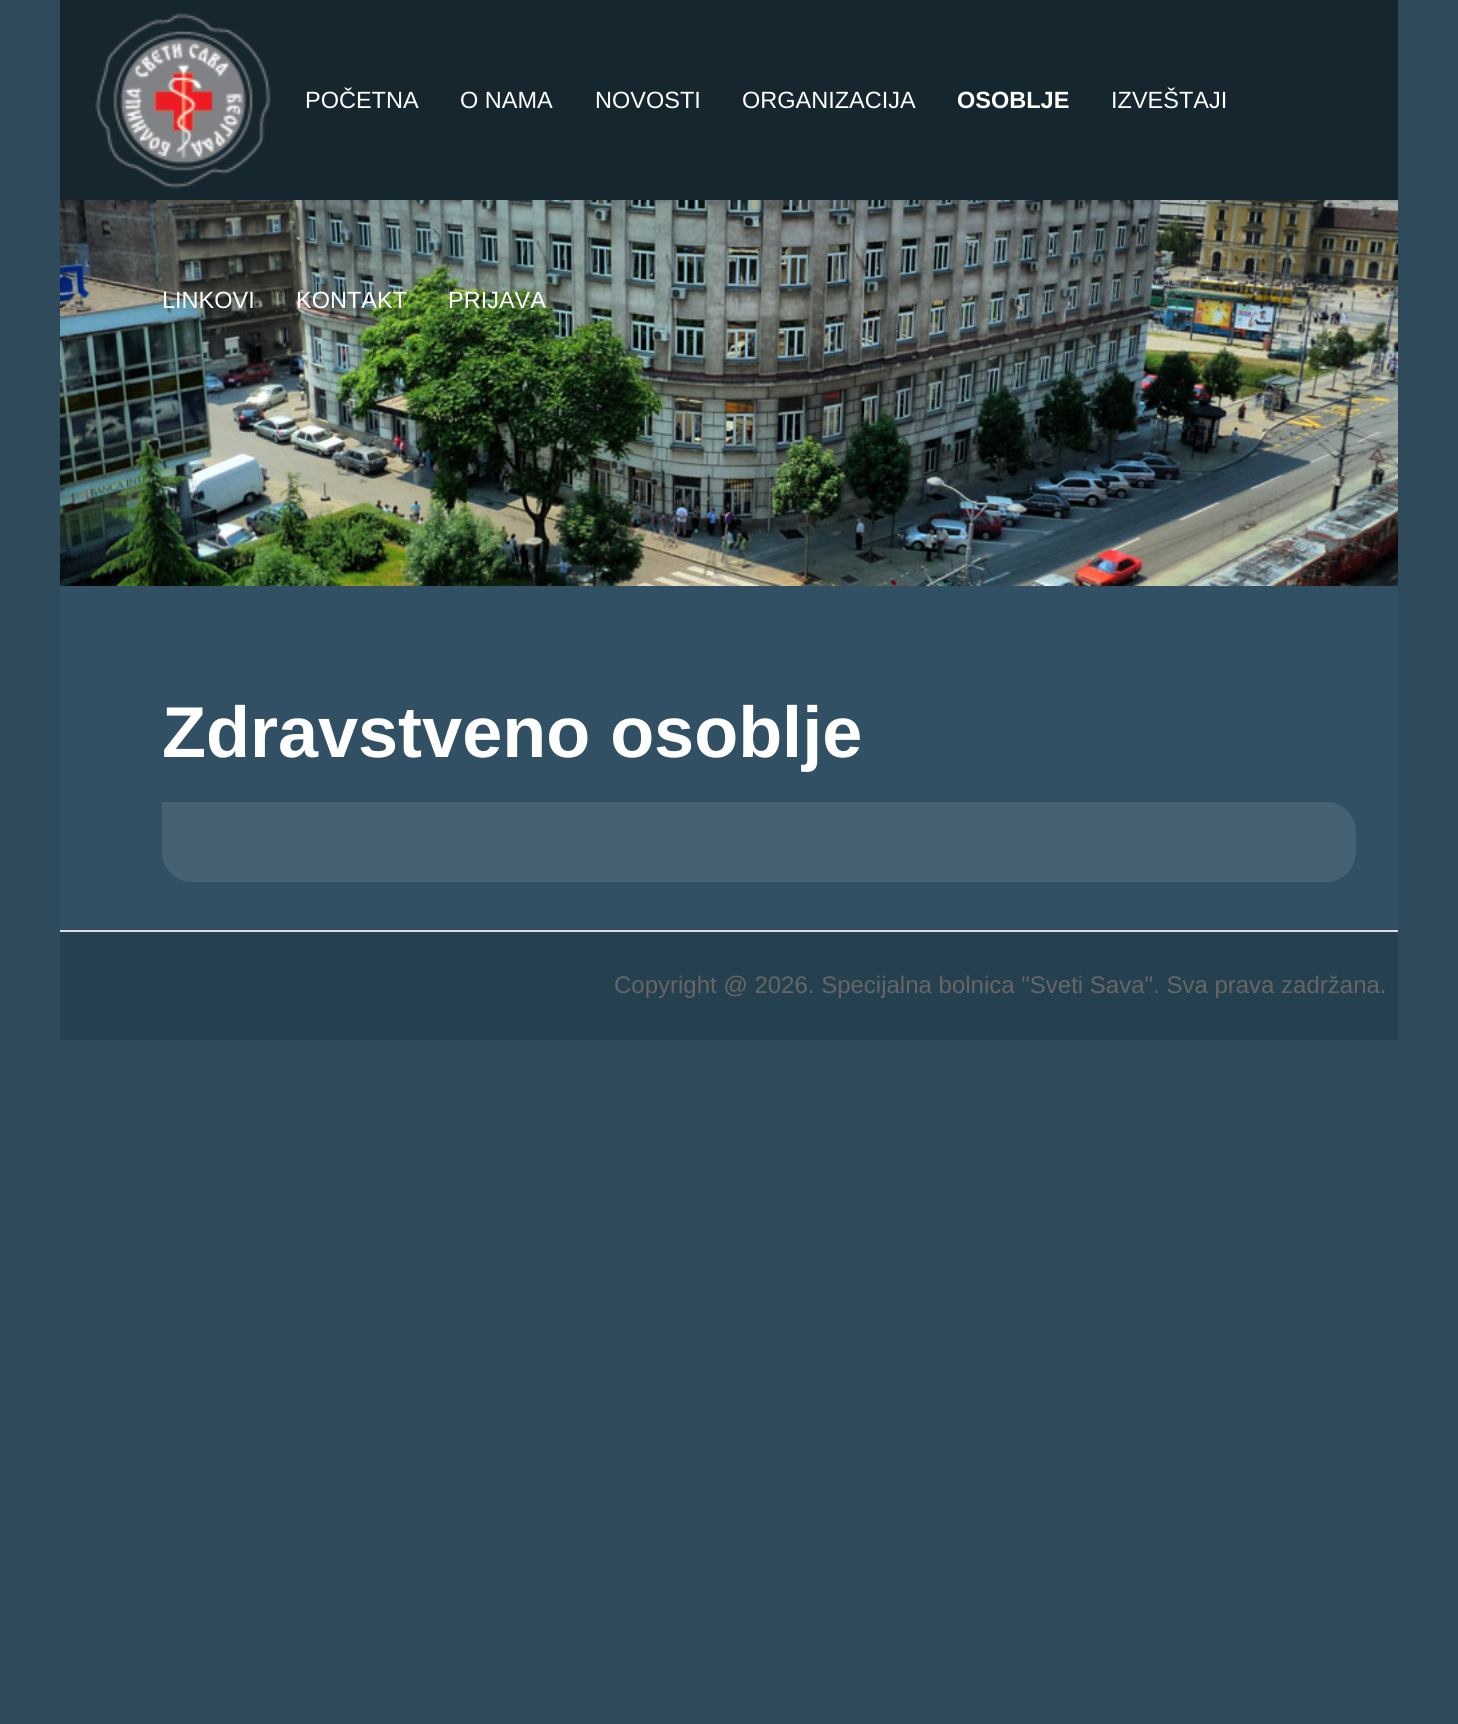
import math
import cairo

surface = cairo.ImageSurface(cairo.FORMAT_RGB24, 1458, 1724)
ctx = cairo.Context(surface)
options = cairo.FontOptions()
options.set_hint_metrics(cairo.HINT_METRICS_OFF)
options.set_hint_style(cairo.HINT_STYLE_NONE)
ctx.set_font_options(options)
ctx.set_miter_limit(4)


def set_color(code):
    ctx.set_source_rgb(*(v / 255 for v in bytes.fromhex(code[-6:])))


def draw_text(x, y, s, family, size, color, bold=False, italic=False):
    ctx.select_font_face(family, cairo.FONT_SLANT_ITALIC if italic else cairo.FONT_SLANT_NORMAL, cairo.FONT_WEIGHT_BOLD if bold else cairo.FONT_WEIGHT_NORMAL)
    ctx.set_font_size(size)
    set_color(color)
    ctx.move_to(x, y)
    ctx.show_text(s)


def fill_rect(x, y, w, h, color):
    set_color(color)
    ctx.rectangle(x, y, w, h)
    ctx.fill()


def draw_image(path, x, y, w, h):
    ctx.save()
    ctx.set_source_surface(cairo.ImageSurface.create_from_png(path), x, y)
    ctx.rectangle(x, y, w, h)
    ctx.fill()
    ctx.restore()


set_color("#2e4a5b")
ctx.paint()
fill_rect(60, 586, 1338, 344, "#325063")
fill_rect(60, 0, 1338, 200, "#15262f")
draw_image("assets/img1.png", 95, 13, 176, 176)
draw_text(305, 108, "POČETNA", "Liberation Sans", 23.5, "#ffffff")
draw_text(460, 108, "O NAMA", "Liberation Sans", 23.5, "#ffffff")
draw_text(595, 108, "NOVOSTI", "Liberation Sans", 23.5, "#ffffff")
draw_text(742, 108, "ORGANIZACIJA", "Liberation Sans", 23.5, "#ffffff")
draw_text(957, 108, "OSOBLJE", "Liberation Sans", 23.5, "#ffffff", bold=True)
draw_text(1111, 108, "IZVEŠTAJI", "Liberation Sans", 23.5, "#ffffff")
draw_image("assets/img2.png", 60, 200, 1338, 386)
draw_text(162, 308, "LINKOVI", "Liberation Sans", 23.5, "#ffffff")
draw_text(296, 308, "KONTAKT", "Liberation Sans", 23.5, "#ffffff")
draw_text(448, 308, "PRIJAVA", "Liberation Sans", 23.5, "#ffffff")
draw_text(162, 757, "Zdravstveno osoblje", "Liberation Sans", 72, "#ffffff", bold=True)
set_color("#466172")
ctx.new_path()
ctx.move_to(162, 802)
ctx.line_to(1326, 802)
ctx.curve_to(1342.5, 802, 1356, 815.5, 1356, 832)
ctx.line_to(1356, 852)
ctx.curve_to(1356, 868.5, 1342.5, 882, 1326, 882)
ctx.line_to(192, 882)
ctx.curve_to(175.5, 882, 162, 868.5, 162, 852)
ctx.close_path()
ctx.fill()
fill_rect(60, 932, 1338, 108, "#25404f")
fill_rect(60, 930, 1338, 2, "#dddddd")
draw_text(614, 993, "Copyright @ 2026. Specijalna bolnica \"Sveti Sava\". Sva prava zadržana.", "Liberation Sans", 24, "#666666")
surface.write_to_png("output.png")
